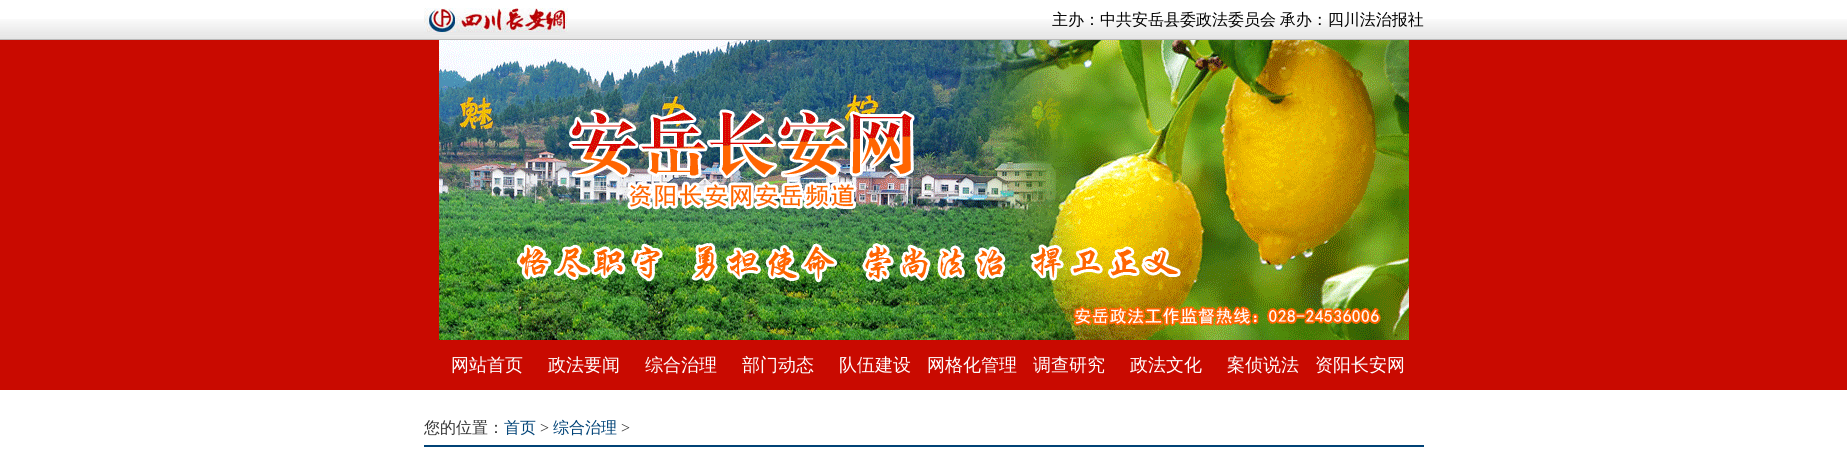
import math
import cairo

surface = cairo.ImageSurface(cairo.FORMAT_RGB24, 1847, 452)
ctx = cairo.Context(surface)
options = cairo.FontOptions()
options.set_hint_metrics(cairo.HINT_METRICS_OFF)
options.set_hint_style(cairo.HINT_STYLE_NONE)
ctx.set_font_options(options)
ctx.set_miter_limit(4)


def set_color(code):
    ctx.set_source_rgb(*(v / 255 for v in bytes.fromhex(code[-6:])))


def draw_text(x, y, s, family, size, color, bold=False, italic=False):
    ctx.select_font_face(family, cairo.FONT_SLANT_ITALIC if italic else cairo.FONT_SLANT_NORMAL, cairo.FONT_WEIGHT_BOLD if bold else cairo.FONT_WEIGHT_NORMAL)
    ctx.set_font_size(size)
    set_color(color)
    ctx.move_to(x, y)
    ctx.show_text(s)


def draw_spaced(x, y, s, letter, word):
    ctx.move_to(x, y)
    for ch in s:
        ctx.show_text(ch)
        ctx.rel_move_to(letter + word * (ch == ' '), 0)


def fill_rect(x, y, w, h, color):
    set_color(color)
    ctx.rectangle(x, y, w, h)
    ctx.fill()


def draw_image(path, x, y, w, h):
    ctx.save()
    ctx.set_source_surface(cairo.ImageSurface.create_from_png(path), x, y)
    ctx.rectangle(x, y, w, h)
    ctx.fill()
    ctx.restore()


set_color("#ffffff")
ctx.paint()
draw_image("assets/img1.png", 0, 19, 1847, 21)
draw_image("assets/img2.png", 424, 8, 144, 28)
ctx.select_font_face("WenQuanYi Zen Hei Medium")
ctx.set_font_size(16)
set_color("#000000")
draw_spaced(1052, 25, "主办：中共安岳县委政法委员会 承办：四川法治报社", 0, -1)
fill_rect(0, 40, 1847, 350, "#c90a00")
draw_image("assets/img3.png", 439, 40, 970, 300)
draw_text(451, 371, "网站首页", "WenQuanYi Zen Hei Medium", 18, "#ffffff")
draw_text(548, 371, "政法要闻", "WenQuanYi Zen Hei Medium", 18, "#ffffff")
draw_text(645, 371, "综合治理", "WenQuanYi Zen Hei Medium", 18, "#ffffff")
draw_text(742, 371, "部门动态", "WenQuanYi Zen Hei Medium", 18, "#ffffff")
draw_text(839, 371, "队伍建设", "WenQuanYi Zen Hei Medium", 18, "#ffffff")
draw_text(927, 371, "网格化管理", "WenQuanYi Zen Hei Medium", 18, "#ffffff")
draw_text(1033, 371, "调查研究", "WenQuanYi Zen Hei Medium", 18, "#ffffff")
draw_text(1130, 371, "政法文化", "WenQuanYi Zen Hei Medium", 18, "#ffffff")
draw_text(1227, 371, "案侦说法", "WenQuanYi Zen Hei Medium", 18, "#ffffff")
draw_text(1315, 371, "资阳长安网", "WenQuanYi Zen Hei Medium", 18, "#ffffff")
draw_text(424, 433, "您的位置：", "WenQuanYi Zen Hei Medium", 16, "#333333")
draw_text(504, 433, "首页", "WenQuanYi Zen Hei Medium", 16, "#004276")
draw_text(540, 433, ">", "Liberation Serif", 16, "#333333")
draw_text(553, 433, "综合治理", "WenQuanYi Zen Hei Medium", 16, "#004276")
draw_text(621, 433, ">", "Liberation Serif", 16, "#333333")
fill_rect(424, 445, 1000, 2, "#004276")
surface.write_to_png("output.png")
